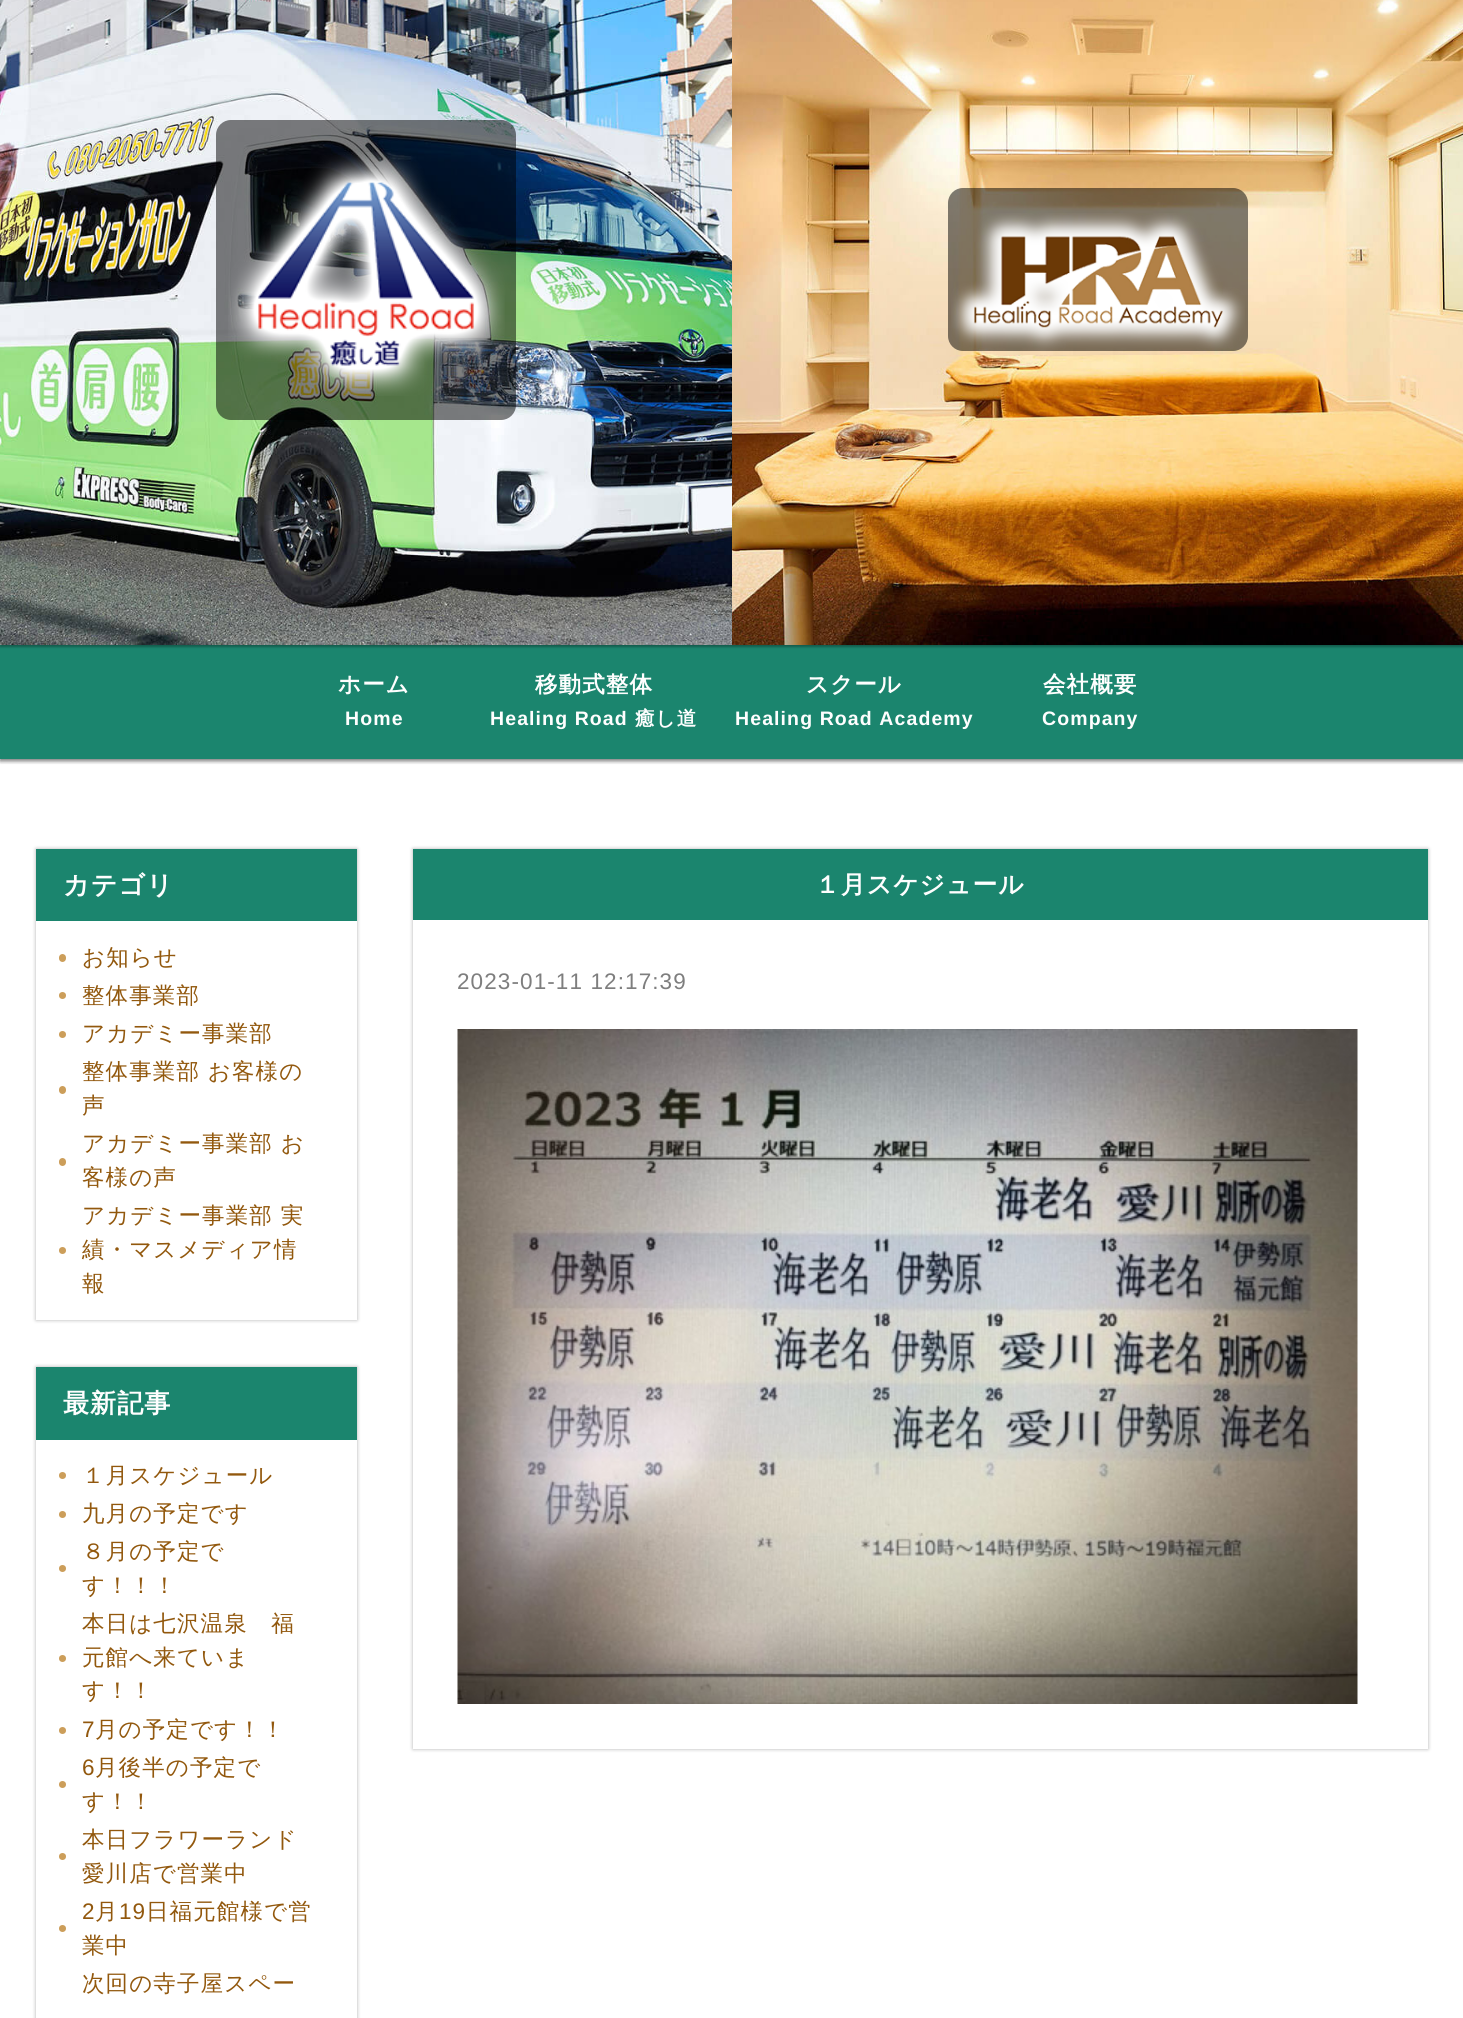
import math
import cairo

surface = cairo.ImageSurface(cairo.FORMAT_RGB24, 1463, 2018)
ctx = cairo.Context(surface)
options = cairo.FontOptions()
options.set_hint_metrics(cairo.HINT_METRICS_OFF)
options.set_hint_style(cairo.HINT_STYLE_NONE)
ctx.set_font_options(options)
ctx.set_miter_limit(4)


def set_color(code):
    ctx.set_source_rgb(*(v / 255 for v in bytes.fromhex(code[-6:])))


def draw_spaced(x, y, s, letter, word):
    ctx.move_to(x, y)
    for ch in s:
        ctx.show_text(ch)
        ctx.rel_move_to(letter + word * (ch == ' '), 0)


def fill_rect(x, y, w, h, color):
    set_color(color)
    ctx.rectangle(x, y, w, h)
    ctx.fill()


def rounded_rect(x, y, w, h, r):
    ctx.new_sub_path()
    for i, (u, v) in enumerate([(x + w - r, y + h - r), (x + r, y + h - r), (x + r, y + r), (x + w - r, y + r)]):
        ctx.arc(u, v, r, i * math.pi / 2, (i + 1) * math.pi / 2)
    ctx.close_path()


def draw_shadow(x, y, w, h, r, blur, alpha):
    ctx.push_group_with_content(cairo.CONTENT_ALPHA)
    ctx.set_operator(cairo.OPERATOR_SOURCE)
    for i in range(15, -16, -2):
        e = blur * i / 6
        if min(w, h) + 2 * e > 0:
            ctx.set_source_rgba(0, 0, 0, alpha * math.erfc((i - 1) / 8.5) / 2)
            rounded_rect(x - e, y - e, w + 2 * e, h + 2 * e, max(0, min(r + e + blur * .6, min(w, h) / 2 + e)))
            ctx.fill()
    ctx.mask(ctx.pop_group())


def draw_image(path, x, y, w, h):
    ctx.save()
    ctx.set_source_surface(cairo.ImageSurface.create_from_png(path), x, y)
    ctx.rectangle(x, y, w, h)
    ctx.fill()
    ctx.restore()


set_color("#ffffff")
ctx.paint()
set_color("#000000")
draw_shadow(0, 647, 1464, 114, 0, 2, 0.3)
fill_rect(0, 645, 1463, 114, "#1b856e")
set_color("#000000")
draw_shadow(0, -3, 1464, 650, 0, 1, 0.3)
ctx.save()
ctx.rectangle(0, 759, 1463, 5)
ctx.clip()
draw_shadow(0, 647, 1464, 114, 0, 2, 0.3)
ctx.restore()
draw_image("assets/img1.png", 0, 0, 732, 645)
ctx.set_source_rgba(0, 0, 0, 0.5)
rounded_rect(216, 120, 300, 300, 15)
ctx.fill()
draw_image("assets/img2.png", 228, 152, 277, 244)
draw_image("assets/img3.png", 732, 0, 731, 645)
rounded_rect(948, 188, 300, 163, 15)
ctx.fill()
draw_image("assets/img4.png", 951, 213, 294, 138)
ctx.select_font_face("WenQuanYi Zen Hei", cairo.FONT_SLANT_NORMAL, cairo.FONT_WEIGHT_BOLD)
ctx.set_font_size(22.5)
set_color("#fefefe")
draw_spaced(338, 692, "ホーム", 1.1, 0)
ctx.select_font_face("Liberation Sans", cairo.FONT_SLANT_NORMAL, cairo.FONT_WEIGHT_BOLD)
ctx.set_font_size(19.5)
draw_spaced(345, 725, "Home", 1.1, 0)
ctx.select_font_face("WenQuanYi Zen Hei", cairo.FONT_SLANT_NORMAL, cairo.FONT_WEIGHT_BOLD)
ctx.set_font_size(22.5)
draw_spaced(535, 692, "移動式整体", 1.1, 0)
ctx.select_font_face("Liberation Sans", cairo.FONT_SLANT_NORMAL, cairo.FONT_WEIGHT_BOLD)
ctx.set_font_size(19.5)
draw_spaced(490, 725, "Healing Road", 1.1, 0)
ctx.select_font_face("WenQuanYi Zen Hei", cairo.FONT_SLANT_NORMAL, cairo.FONT_WEIGHT_BOLD)
draw_spaced(635, 725, "癒し道", 1.1, 0)
ctx.set_font_size(22.5)
draw_spaced(806, 692, "スクール", 1.1, 0)
ctx.select_font_face("Liberation Sans", cairo.FONT_SLANT_NORMAL, cairo.FONT_WEIGHT_BOLD)
ctx.set_font_size(19.5)
draw_spaced(735, 725, "Healing Road Academy", 1.1, 0)
ctx.select_font_face("WenQuanYi Zen Hei", cairo.FONT_SLANT_NORMAL, cairo.FONT_WEIGHT_BOLD)
ctx.set_font_size(22.5)
draw_spaced(1043, 692, "会社概要", 1.1, 0)
ctx.select_font_face("Liberation Sans", cairo.FONT_SLANT_NORMAL, cairo.FONT_WEIGHT_BOLD)
ctx.set_font_size(19.5)
draw_spaced(1042, 725, "Company", 1.1, 0)
ctx.save()
ctx.set_fill_rule(cairo.FILL_RULE_EVEN_ODD)
ctx.new_path()
ctx.move_to(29, 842)
ctx.line_to(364, 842)
ctx.line_to(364, 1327)
ctx.line_to(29, 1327)
ctx.close_path()
ctx.move_to(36, 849)
ctx.line_to(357, 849)
ctx.line_to(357, 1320)
ctx.line_to(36, 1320)
ctx.close_path()
ctx.clip()
set_color("#000000")
draw_shadow(36, 849, 321, 471, 0, 2, 0.3)
ctx.restore()
fill_rect(36, 849, 321, 72, "#1b856e")
ctx.select_font_face("WenQuanYi Zen Hei", cairo.FONT_SLANT_NORMAL, cairo.FONT_WEIGHT_BOLD)
ctx.set_font_size(26)
set_color("#fefefe")
draw_spaced(63, 894, "カテゴリ", 1.1, 0)
set_color("#cc9e5a")
rounded_rect(59, 954, 7, 8, 3.5)
ctx.fill()
ctx.select_font_face("WenQuanYi Zen Hei Medium")
ctx.set_font_size(22.5)
set_color("#92580d")
draw_spaced(82, 965, "お知らせ", 1.1, 0)
set_color("#cc9e5a")
ctx.new_path()
ctx.arc(62.5, 995.5, 3.5, 0, 2 * math.pi)
ctx.fill()
set_color("#92580d")
draw_spaced(82, 1003, "整体事業部", 1.1, 0)
set_color("#cc9e5a")
ctx.new_path()
ctx.arc(62.5, 1034.5, 3.5, 0, 2 * math.pi)
ctx.fill()
set_color("#92580d")
draw_spaced(82, 1041, "アカデミー事業部", 1.1, 0)
draw_spaced(82, 1079, "整体事業部 お客様の", 1.1, 0)
set_color("#cc9e5a")
rounded_rect(59, 1086, 7, 8, 3.5)
ctx.fill()
set_color("#92580d")
draw_spaced(82, 1113, "声", 1.1, 0)
draw_spaced(82, 1151, "アカデミー事業部 お", 1.1, 0)
set_color("#cc9e5a")
rounded_rect(59, 1158, 7, 8, 3.5)
ctx.fill()
set_color("#92580d")
draw_spaced(82, 1185, "客様の声", 1.1, 0)
draw_spaced(82, 1223, "アカデミー事業部 実", 1.1, 0)
set_color("#cc9e5a")
ctx.new_path()
ctx.arc(62.5, 1250.5, 3.5, 0, 2 * math.pi)
ctx.fill()
set_color("#92580d")
draw_spaced(82, 1257, "績・マスメディア情", 1.1, 0)
draw_spaced(82, 1291, "報", 1.1, 0)
ctx.save()
ctx.set_fill_rule(cairo.FILL_RULE_EVEN_ODD)
ctx.new_path()
ctx.move_to(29, 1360)
ctx.line_to(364, 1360)
ctx.line_to(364, 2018)
ctx.line_to(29, 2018)
ctx.close_path()
ctx.move_to(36, 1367)
ctx.line_to(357, 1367)
ctx.line_to(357, 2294)
ctx.line_to(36, 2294)
ctx.close_path()
ctx.clip()
set_color("#000000")
draw_shadow(36, 1367, 321, 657, 0, 2, 0.3)
ctx.restore()
fill_rect(36, 1367, 321, 73, "#1b856e")
ctx.select_font_face("WenQuanYi Zen Hei", cairo.FONT_SLANT_NORMAL, cairo.FONT_WEIGHT_BOLD)
ctx.set_font_size(26)
set_color("#fefefe")
draw_spaced(63, 1412, "最新記事", 1.1, 0)
set_color("#cc9e5a")
ctx.new_path()
ctx.arc(62.5, 1475.5, 3.5, 0, 2 * math.pi)
ctx.fill()
ctx.select_font_face("WenQuanYi Zen Hei Medium")
ctx.set_font_size(22.5)
set_color("#92580d")
draw_spaced(82, 1483, "１月スケジュール", 1.1, 0)
set_color("#cc9e5a")
ctx.new_path()
ctx.arc(62.5, 1514.5, 3.5, 0, 2 * math.pi)
ctx.fill()
set_color("#92580d")
draw_spaced(82, 1521, "九月の予定です", 1.1, 0)
draw_spaced(82, 1559, "８月の予定で", 1.1, 0)
set_color("#cc9e5a")
ctx.new_path()
ctx.arc(62.5, 1568.5, 3.5, 0, 2 * math.pi)
ctx.fill()
set_color("#92580d")
draw_spaced(82, 1593, "す！！！", 1.1, 0)
draw_spaced(82, 1631, "本日は七沢温泉　福", 1.1, 0)
set_color("#cc9e5a")
ctx.new_path()
ctx.arc(62.5, 1658.5, 3.5, 0, 2 * math.pi)
ctx.fill()
set_color("#92580d")
draw_spaced(82, 1665, "元館へ来ていま", 1.1, 0)
draw_spaced(82, 1698, "す！！", 1.1, 0)
set_color("#cc9e5a")
ctx.new_path()
ctx.arc(62.5, 1730.5, 3.5, 0, 2 * math.pi)
ctx.fill()
ctx.select_font_face("Liberation Sans")
set_color("#92580d")
draw_spaced(82, 1737, "7", 1.1, 0)
ctx.select_font_face("WenQuanYi Zen Hei Medium")
draw_spaced(95, 1737, "月の予定です！！", 1.1, 0)
ctx.select_font_face("Liberation Sans")
draw_spaced(82, 1775, "6", 1.1, 0)
ctx.select_font_face("WenQuanYi Zen Hei Medium")
draw_spaced(95, 1775, "月後半の予定で", 1.1, 0)
set_color("#cc9e5a")
ctx.new_path()
ctx.arc(62.5, 1784.5, 3.5, 0, 2 * math.pi)
ctx.fill()
set_color("#92580d")
draw_spaced(82, 1809, "す！！", 1.1, 0)
draw_spaced(82, 1847, "本日フラワーランド", 1.1, 0)
set_color("#cc9e5a")
ctx.new_path()
ctx.arc(62.5, 1856.5, 3.5, 0, 2 * math.pi)
ctx.fill()
set_color("#92580d")
draw_spaced(82, 1881, "愛川店で営業中", 1.1, 0)
ctx.select_font_face("Liberation Sans")
draw_spaced(82, 1919, "2", 1.1, 0)
ctx.select_font_face("WenQuanYi Zen Hei Medium")
draw_spaced(95, 1919, "月", 1.1, 0)
ctx.select_font_face("Liberation Sans")
draw_spaced(119, 1919, "19", 1.1, 0)
ctx.select_font_face("WenQuanYi Zen Hei Medium")
draw_spaced(146, 1919, "日福元館様で営", 1.1, 0)
set_color("#cc9e5a")
ctx.new_path()
ctx.arc(62.5, 1928.5, 3.5, 0, 2 * math.pi)
ctx.fill()
set_color("#92580d")
draw_spaced(82, 1953, "業中", 1.1, 0)
draw_spaced(82, 1991, "次回の寺子屋スペー", 1.1, 0)
ctx.save()
ctx.set_fill_rule(cairo.FILL_RULE_EVEN_ODD)
ctx.new_path()
ctx.move_to(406, 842)
ctx.line_to(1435, 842)
ctx.line_to(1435, 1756)
ctx.line_to(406, 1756)
ctx.close_path()
ctx.move_to(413, 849)
ctx.line_to(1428, 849)
ctx.line_to(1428, 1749)
ctx.line_to(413, 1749)
ctx.close_path()
ctx.clip()
set_color("#000000")
draw_shadow(413, 849, 1015, 900, 0, 2, 0.3)
ctx.restore()
fill_rect(413, 849, 1015, 71, "#1b856e")
ctx.select_font_face("WenQuanYi Zen Hei", cairo.FONT_SLANT_NORMAL, cairo.FONT_WEIGHT_BOLD)
ctx.set_font_size(24.75)
set_color("#fefefe")
draw_spaced(815, 893, "１月スケジュール", 1.1, 0)
ctx.select_font_face("Liberation Sans")
ctx.set_font_size(22.5)
set_color("#7e7e7e")
draw_spaced(457, 989, "2023-01-11 12:17:39", 1.1, 0)
draw_image("assets/img5.png", 457, 1029, 901, 675)
surface.write_to_png("output.png")
